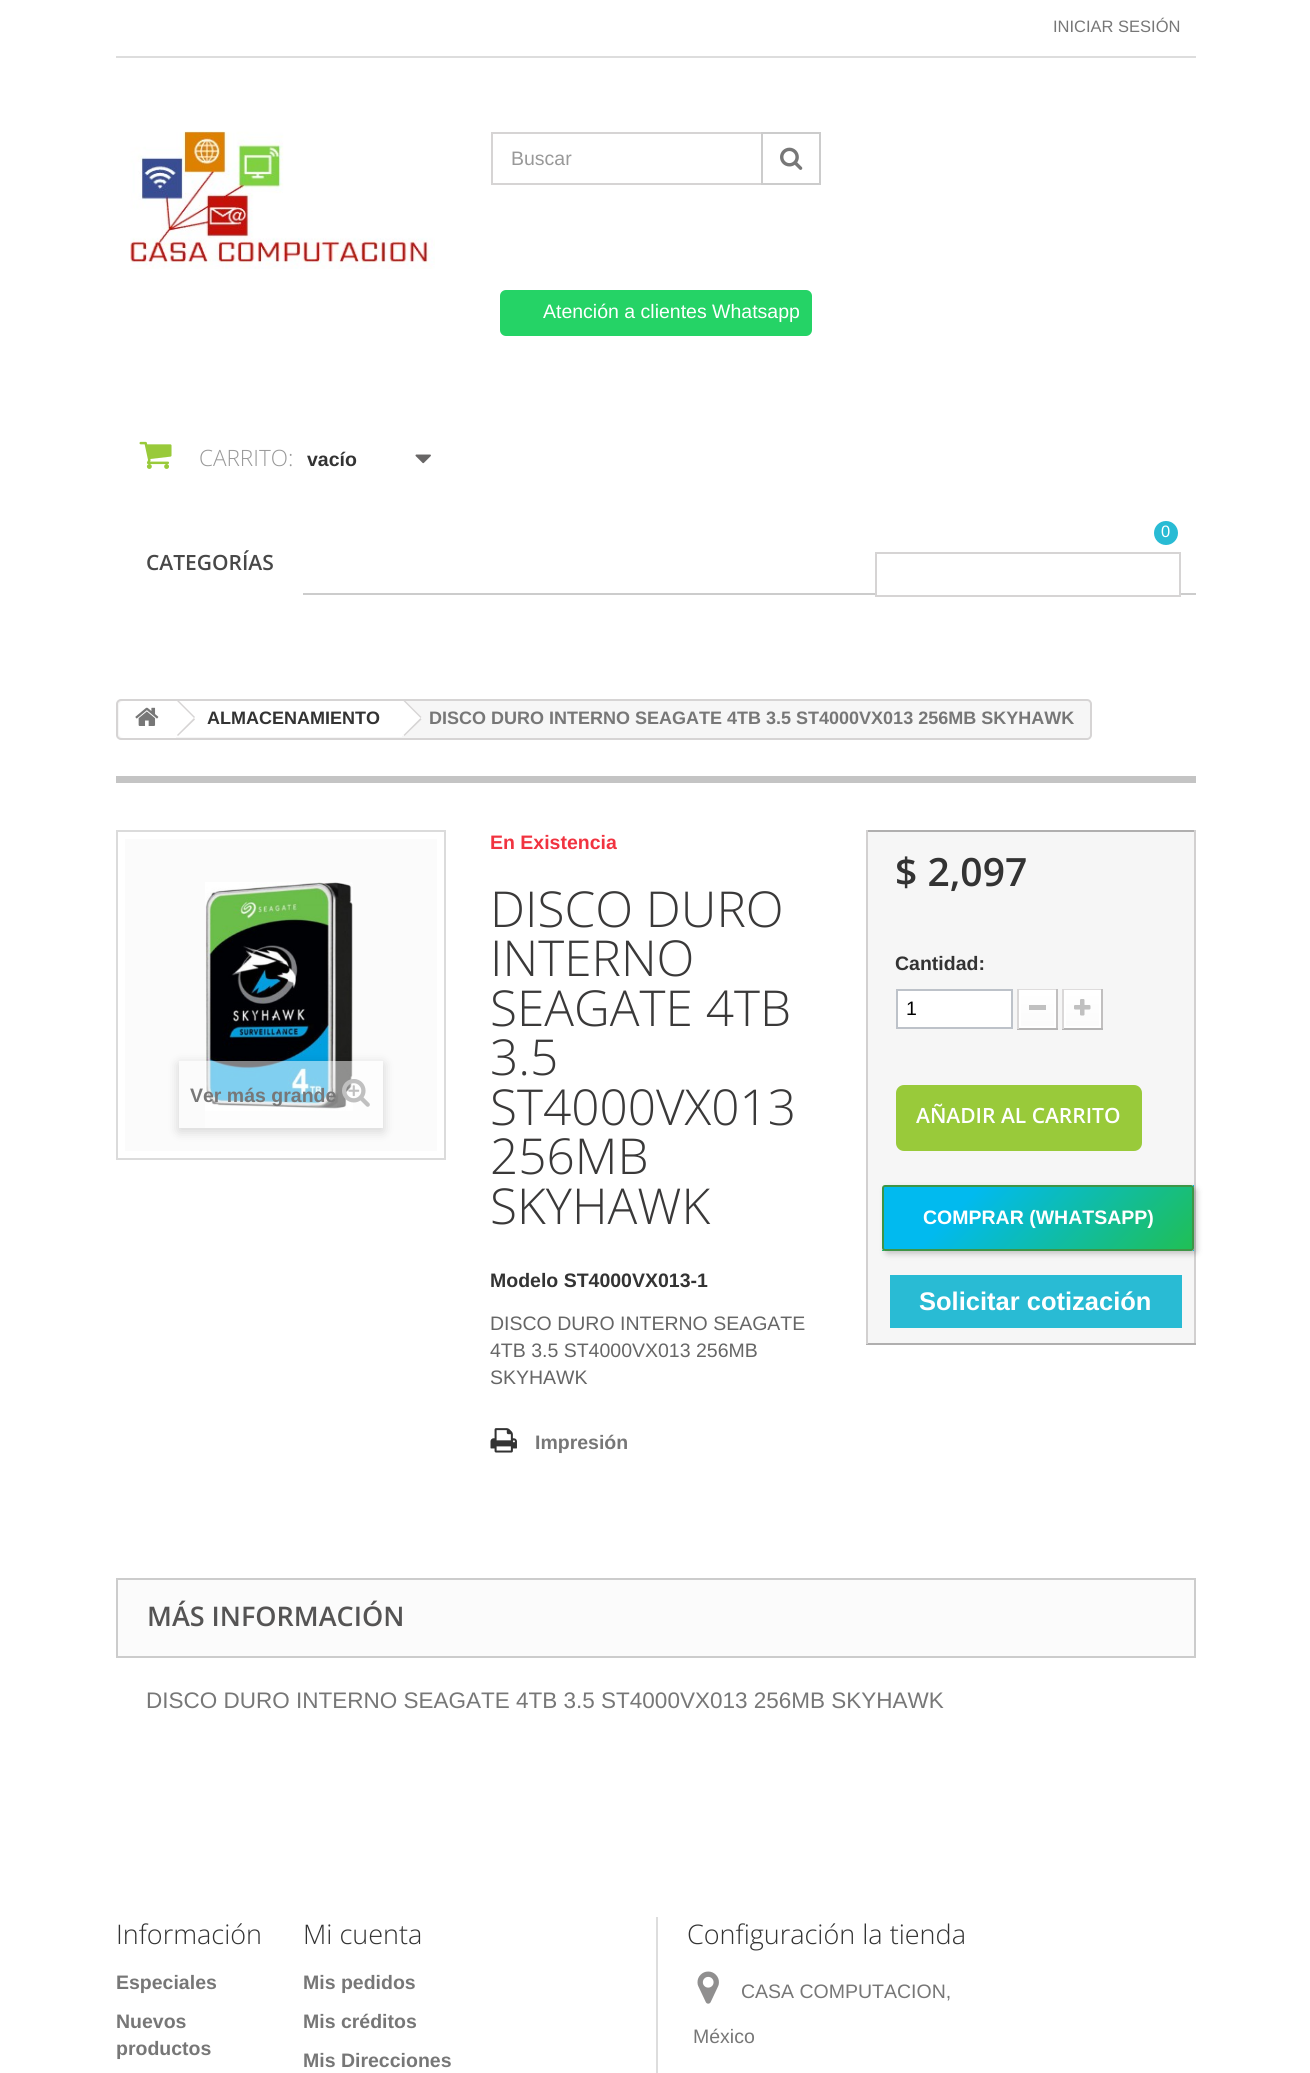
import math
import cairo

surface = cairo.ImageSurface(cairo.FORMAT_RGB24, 1310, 2073)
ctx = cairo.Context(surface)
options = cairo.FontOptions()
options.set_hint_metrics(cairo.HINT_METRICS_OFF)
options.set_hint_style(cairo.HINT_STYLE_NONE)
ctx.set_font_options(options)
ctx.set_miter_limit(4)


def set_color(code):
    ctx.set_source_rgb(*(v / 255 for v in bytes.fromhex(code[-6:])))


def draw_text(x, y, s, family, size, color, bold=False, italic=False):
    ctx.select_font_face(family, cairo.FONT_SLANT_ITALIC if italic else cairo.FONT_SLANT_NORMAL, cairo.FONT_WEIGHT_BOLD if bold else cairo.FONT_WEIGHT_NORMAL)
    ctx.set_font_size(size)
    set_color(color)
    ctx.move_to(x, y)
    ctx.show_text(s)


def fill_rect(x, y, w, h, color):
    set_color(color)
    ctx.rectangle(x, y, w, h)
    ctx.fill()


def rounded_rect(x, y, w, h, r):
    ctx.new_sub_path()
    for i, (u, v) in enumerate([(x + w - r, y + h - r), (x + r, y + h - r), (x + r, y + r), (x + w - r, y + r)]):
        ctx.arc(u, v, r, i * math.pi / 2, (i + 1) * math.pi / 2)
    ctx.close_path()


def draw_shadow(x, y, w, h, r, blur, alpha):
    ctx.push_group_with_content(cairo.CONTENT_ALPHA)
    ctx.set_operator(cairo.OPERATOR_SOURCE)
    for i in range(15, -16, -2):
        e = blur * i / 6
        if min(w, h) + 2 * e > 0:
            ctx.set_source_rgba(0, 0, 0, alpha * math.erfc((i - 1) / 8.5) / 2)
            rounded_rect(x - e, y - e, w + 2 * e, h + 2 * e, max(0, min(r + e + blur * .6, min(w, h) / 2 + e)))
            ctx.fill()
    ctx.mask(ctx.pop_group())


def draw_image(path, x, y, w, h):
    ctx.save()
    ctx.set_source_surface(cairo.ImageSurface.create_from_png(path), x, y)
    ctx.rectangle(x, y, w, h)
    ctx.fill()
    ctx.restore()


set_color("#ffffff")
ctx.paint()
fill_rect(116, 56, 1080, 2, "#dddddd")
draw_text(1053, 32, "INICIAR SESIÓN", "Liberation Sans", 16.5, "#777777")
draw_image("assets/img1.png", 130, 131, 305, 138)
ctx.rectangle(492, 133, 328, 51)
set_color("#d6d4d4")
ctx.stroke()
draw_text(511, 165, "Buscar", "Liberation Sans", 19.5, "#999999")
ctx.rectangle(762, 133, 58, 51)
set_color("#cccccc")
ctx.stroke()
draw_image("assets/img2.png", 780, 147, 23, 23)
set_color("#25d366")
rounded_rect(500, 290, 312, 46, 6)
ctx.fill()
draw_text(543, 318, "Atención a clientes Whatsapp", "Liberation Sans", 19.5, "#ffffff")
draw_image("assets/img3.png", 139, 441, 33, 28)
draw_text(199, 466, "CARRITO:", "Open Sans Light", 22.5, "#999999")
draw_text(307, 466, "vacío", "Liberation Sans", 19.5, "#333333", bold=True)
draw_image("assets/img4.png", 415, 454, 16, 10)
set_color("#29bbd4")
ctx.arc(1166, 533, 12, 0, 2 * math.pi)
ctx.fill()
draw_text(1161, 537, "0", "Liberation Sans", 16.5, "#ffffff")
fill_rect(303, 593, 893, 2, "#cccccc")
draw_text(146, 570, "CATEGORÍAS", "Open Sans SemiBold", 21, "#484848")
fill_rect(877, 593, 302, 2, "#ffffff")
ctx.rectangle(876, 553, 304, 43)
set_color("#d6d4d4")
ctx.stroke()
set_color("#f6f6f6")
rounded_rect(117, 700, 974, 39, 4)
ctx.fill_preserve()
set_color("#d6d4d4")
ctx.stroke()
set_color("#ffffff")
ctx.new_path()
ctx.move_to(124, 701)
ctx.line_to(176, 701)
ctx.line_to(176, 738)
ctx.line_to(124, 738)
ctx.curve_to(121, 738, 119, 736, 119, 733)
ctx.line_to(119, 706)
ctx.curve_to(119, 703, 121, 701, 124, 701)
ctx.close_path()
ctx.fill()
draw_image("assets/img5.png", 135, 707, 24, 19)
fill_rect(176, 701, 226, 36, "#ffffff")
set_color("#d6d4d4")
ctx.new_path()
ctx.move_to(179, 701)
ctx.line_to(195, 717)
ctx.line_to(194, 718)
ctx.line_to(177, 701)
ctx.close_path()
ctx.move_to(194, 718)
ctx.line_to(195, 719.5)
ctx.line_to(178, 736)
ctx.line_to(177, 735)
ctx.close_path()
ctx.fill()
draw_text(207, 724, "ALMACENAMIENTO", "Liberation Sans", 18, "#333333", bold=True)
set_color("#ffffff")
ctx.new_path()
ctx.move_to(405.5, 701)
ctx.line_to(401.5, 701)
ctx.line_to(386.5, 716)
ctx.curve_to(385.5, 717, 385.5, 719, 386.5, 720.5)
ctx.line_to(401.5, 735)
ctx.curve_to(402.5, 736.5, 404.5, 736.5, 405.5, 735)
ctx.line_to(420.5, 720.5)
ctx.curve_to(421.5, 719, 421.5, 717, 420.5, 716)
ctx.close_path()
ctx.fill()
set_color("#d6d4d4")
ctx.new_path()
ctx.move_to(405.5, 701)
ctx.line_to(421.5, 717)
ctx.line_to(420.5, 718)
ctx.line_to(403.5, 701)
ctx.close_path()
ctx.move_to(420.5, 718)
ctx.line_to(421.5, 719.5)
ctx.line_to(404.5, 736)
ctx.line_to(403.5, 735)
ctx.close_path()
ctx.fill()
draw_text(429, 724, "DISCO DURO INTERNO SEAGATE 4TB 3.5 ST4000VX013 256MB SKYHAWK", "Liberation Sans", 18, "#777777", bold=True)
fill_rect(116, 776, 1080, 7, "#c4c4c4")
ctx.rectangle(117, 831, 328, 328)
set_color("#dbdbdb")
ctx.stroke()
fill_rect(125, 839, 312, 312, "#fbfbfb")
draw_image("assets/img6.png", 205, 882, 148, 229)
ctx.save()
ctx.set_fill_rule(cairo.FILL_RULE_EVEN_ODD)
ctx.new_path()
ctx.move_to(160, 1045)
ctx.line_to(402, 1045)
ctx.line_to(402, 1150)
ctx.line_to(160, 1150)
ctx.close_path()
ctx.move_to(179, 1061)
ctx.line_to(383, 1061)
ctx.line_to(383, 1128)
ctx.line_to(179, 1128)
ctx.close_path()
ctx.clip()
set_color("#000000")
draw_shadow(179, 1064, 204, 67, 0, 6, 0.16)
ctx.restore()
ctx.set_source_rgba(1, 1, 1, 0.5)
ctx.rectangle(205, 1061, 178, 67)
ctx.fill()
draw_text(190, 1102, "Ver más grande", "Liberation Sans", 19.5, "#777777", bold=True)
draw_image("assets/img7.png", 342, 1079, 28, 28)
draw_text(490, 849, "En Existencia", "Liberation Sans", 19.5, "#f13340", bold=True)
draw_text(490, 927, "DISCO DURO", "Open Sans Light", 49.5, "#3a3939")
draw_text(490, 976, "INTERNO", "Open Sans Light", 49.5, "#3a3939")
draw_text(490, 1026, "SEAGATE 4TB", "Open Sans Light", 49.5, "#3a3939")
draw_text(490, 1075, "3.5", "Open Sans Light", 49.5, "#3a3939")
draw_text(490, 1125, "ST4000VX013", "Open Sans Light", 49.5, "#3a3939")
draw_text(490, 1174, "256MB", "Open Sans Light", 49.5, "#3a3939")
draw_text(490, 1224, "SKYHAWK", "Open Sans Light", 49.5, "#3a3939")
draw_text(490, 1287, "Modelo ST4000VX013-1", "Liberation Sans", 19.5, "#333333", bold=True)
draw_text(490, 1330, "DISCO DURO INTERNO SEAGATE", "Liberation Sans", 19.5, "#666666")
draw_text(490, 1357, "4TB 3.5 ST4000VX013 256MB", "Liberation Sans", 19.5, "#666666")
draw_text(490, 1384, "SKYHAWK", "Liberation Sans", 19.5, "#666666")
draw_image("assets/img8.png", 490, 1428, 27, 25)
draw_text(535, 1449, "Impresión", "Liberation Sans", 19.5, "#777777", bold=True)
fill_rect(868, 832, 326, 511, "#f6f6f6")
fill_rect(866, 830, 330, 2, "#b0afaf")
fill_rect(1194, 830, 2, 514, "#d2d0d0")
fill_rect(866, 1343, 330, 2, "#b0afaf")
fill_rect(866, 830, 2, 514, "#d2d0d0")
draw_text(895, 886, "$ 2,097", "Open Sans SemiBold", 39, "#333333")
draw_text(895, 970, "Cantidad:", "Liberation Sans", 19.5, "#333333", bold=True)
set_color("#ffffff")
ctx.rectangle(897, 990, 115, 38)
ctx.fill_preserve()
set_color("#bdc2c9")
ctx.stroke()
draw_text(906, 1015, "1", "Liberation Sans", 19.5, "#000000")
fill_rect(1017, 989, 41, 1, "#dedcdc")
fill_rect(1056, 989, 2, 40, "#c1bfbf")
fill_rect(1017, 1028, 41, 2, "#b5b4b4")
fill_rect(1017, 989, 2, 40, "#dad8d8")
gradient = cairo.LinearGradient(1037, 992, 1037, 1026)
gradient.add_color_stop_rgba(0, 1, 1, 1, 1)
gradient.add_color_stop_rgba(1, 0.984, 0.984, 0.984, 1)
ctx.set_source(gradient)
ctx.rectangle(1021, 992, 33, 34)
ctx.fill()
ctx.rectangle(1020, 991, 35, 36)
set_color("#ffffff")
ctx.stroke()
fill_rect(1029, 1005, 17, 5, "#c0c0c0")
fill_rect(1062, 989, 41, 1, "#dedcdc")
fill_rect(1101, 989, 2, 40, "#c1bfbf")
fill_rect(1062, 1028, 41, 2, "#b5b4b4")
fill_rect(1062, 989, 2, 40, "#dad8d8")
gradient = cairo.LinearGradient(1082, 992, 1082, 1026)
gradient.add_color_stop_rgba(0, 1, 1, 1, 1)
gradient.add_color_stop_rgba(1, 0.984, 0.984, 0.984, 1)
ctx.set_source(gradient)
ctx.rectangle(1066, 992, 33, 34)
ctx.fill()
ctx.rectangle(1065, 991, 35, 36)
set_color("#ffffff")
ctx.stroke()
draw_image("assets/img9.png", 1074, 999, 17, 17)
set_color("#99ca3a")
rounded_rect(897, 1086, 244, 64, 7)
ctx.fill_preserve()
ctx.stroke()
draw_text(916, 1123, "AÑADIR AL CARRITO", "Open Sans SemiBold", 21, "#ffffff")
set_color("#000000")
draw_shadow(885, 1188, 312, 66, 3, 3, 0.2)
gradient = cairo.LinearGradient(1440, 1248, 1254, 1062)
gradient.add_color_stop_rgba(0, 0.125, 0.749, 0.333, 1)
gradient.add_color_stop_rgba(0.74, 0.004, 0.729, 0.937, 1)
ctx.set_source(gradient)
ctx.rectangle(1193, 1185, 1, 2)
ctx.fill()
gradient = cairo.LinearGradient(1131, 1311, 945, 1125)
gradient.add_color_stop_rgba(0, 0.125, 0.749, 0.333, 1)
gradient.add_color_stop_rgba(0.74, 0.004, 0.729, 0.937, 1)
ctx.set_source(gradient)
ctx.rectangle(884, 1187, 308, 62)
ctx.fill()
gradient = cairo.LinearGradient(822, 1374, 636, 1188)
gradient.add_color_stop_rgba(0, 0.125, 0.749, 0.333, 1)
gradient.add_color_stop_rgba(0.74, 0.004, 0.729, 0.937, 1)
ctx.set_source(gradient)
ctx.rectangle(882, 1250, 2, 1)
ctx.fill()
gradient = cairo.LinearGradient(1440, 1374, 1254, 1188)
gradient.add_color_stop_rgba(0, 0.125, 0.749, 0.333, 1)
gradient.add_color_stop_rgba(0.74, 0.004, 0.729, 0.937, 1)
ctx.set_source(gradient)
ctx.rectangle(1193, 1250, 1, 1)
ctx.fill()
rounded_rect(883, 1186, 310, 64, 2)
set_color("#3e9546")
ctx.stroke()
draw_text(923, 1224, "COMPRAR (WHATSAPP)", "Liberation Sans", 19.5, "#ffffff", bold=True)
fill_rect(890, 1275, 292, 53, "#29bbd4")
draw_text(919, 1310, "Solicitar cotización", "Liberation Sans", 25.5, "#ffffff", bold=True)
set_color("#fbfbfb")
ctx.rectangle(117, 1579, 1078, 78)
ctx.fill_preserve()
set_color("#cccccc")
ctx.stroke()
draw_text(147, 1626, "MÁS INFORMACIÓN", "Open Sans SemiBold", 27, "#555454")
draw_text(146, 1708, "DISCO DURO INTERNO SEAGATE 4TB 3.5 ST4000VX013 256MB SKYHAWK", "Liberation Sans", 22.5, "#777777")
draw_text(116, 1944, "Información", "Open Sans Light", 27, "#333333")
draw_text(116, 1989, "Especiales", "Liberation Sans", 19.5, "#777777", bold=True)
draw_text(116, 2028, "Nuevos", "Liberation Sans", 19.5, "#777777", bold=True)
draw_text(116, 2055, "productos", "Liberation Sans", 19.5, "#777777", bold=True)
draw_text(303, 1944, "Mi cuenta", "Open Sans Light", 27, "#333333")
draw_text(303, 1989, "Mis pedidos", "Liberation Sans", 19.5, "#777777", bold=True)
draw_text(303, 2028, "Mis créditos", "Liberation Sans", 19.5, "#777777", bold=True)
draw_text(303, 2067, "Mis Direcciones", "Liberation Sans", 19.5, "#777777", bold=True)
fill_rect(656, 1917, 2, 156, "#dddddd")
draw_text(687, 1944, "Configuración la tienda", "Open Sans Light", 27, "#333333")
draw_image("assets/img10.png", 697, 1971, 22, 33)
draw_text(741, 1998, "CASA COMPUTACION,", "Liberation Sans", 19.5, "#777777")
draw_text(693, 2043, "México", "Liberation Sans", 19.5, "#777777")
surface.write_to_png("output.png")
